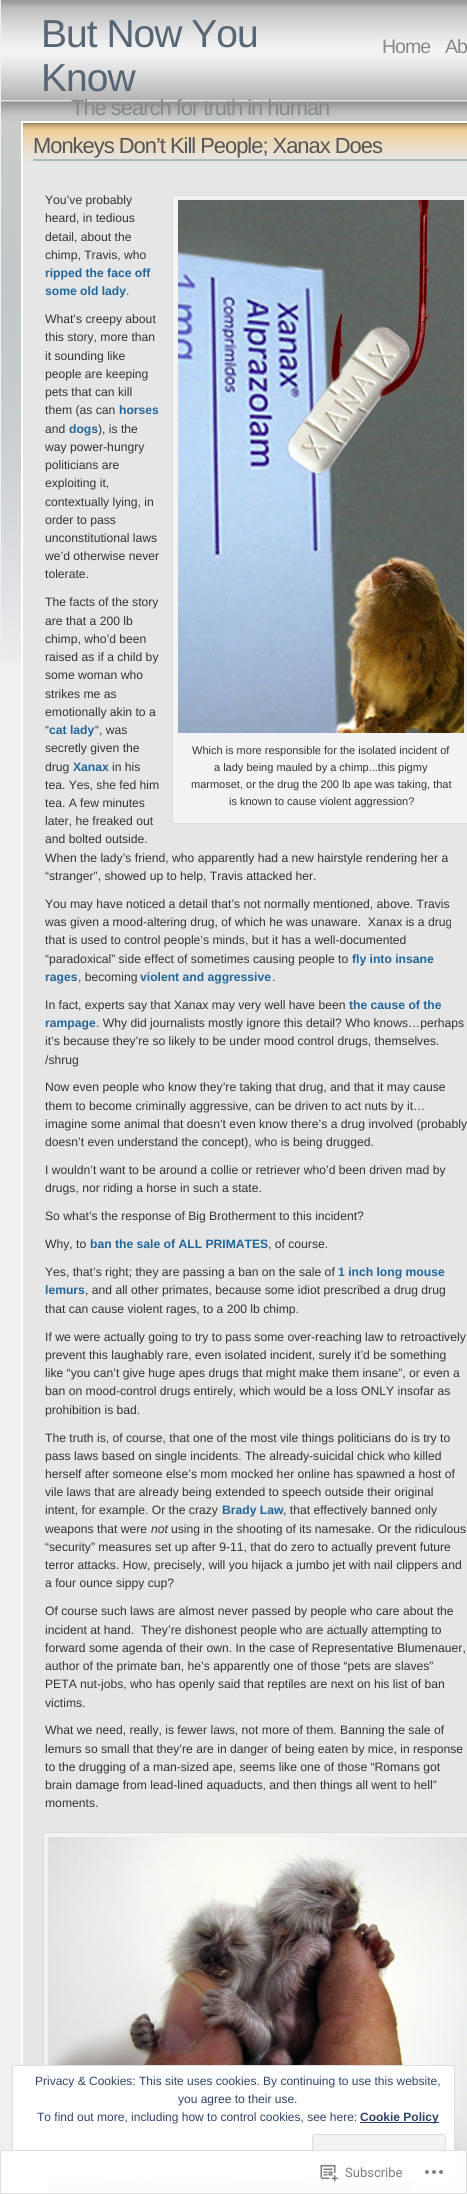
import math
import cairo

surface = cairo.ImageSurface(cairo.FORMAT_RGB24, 467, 2194)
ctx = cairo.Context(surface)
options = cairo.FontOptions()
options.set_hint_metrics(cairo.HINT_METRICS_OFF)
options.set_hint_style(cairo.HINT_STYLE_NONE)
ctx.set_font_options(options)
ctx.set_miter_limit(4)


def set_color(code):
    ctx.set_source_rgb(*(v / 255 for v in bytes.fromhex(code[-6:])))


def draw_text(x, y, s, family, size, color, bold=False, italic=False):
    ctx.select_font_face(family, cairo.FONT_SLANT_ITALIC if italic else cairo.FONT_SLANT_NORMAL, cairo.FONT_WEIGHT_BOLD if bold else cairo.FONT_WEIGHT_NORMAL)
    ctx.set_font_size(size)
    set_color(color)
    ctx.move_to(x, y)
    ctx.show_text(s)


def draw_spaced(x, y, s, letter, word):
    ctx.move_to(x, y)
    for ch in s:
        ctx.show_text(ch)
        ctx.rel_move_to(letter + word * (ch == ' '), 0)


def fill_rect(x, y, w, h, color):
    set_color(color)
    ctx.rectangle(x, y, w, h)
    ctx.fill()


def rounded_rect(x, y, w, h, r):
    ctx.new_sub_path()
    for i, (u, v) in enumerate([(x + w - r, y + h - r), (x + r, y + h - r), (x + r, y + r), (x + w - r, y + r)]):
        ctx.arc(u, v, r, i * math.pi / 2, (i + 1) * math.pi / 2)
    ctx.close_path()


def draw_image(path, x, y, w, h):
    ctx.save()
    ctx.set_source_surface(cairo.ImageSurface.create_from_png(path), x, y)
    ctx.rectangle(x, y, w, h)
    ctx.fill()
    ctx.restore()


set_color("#f0f0f0")
ctx.paint()
draw_image("assets/img1.png", 1, 0, 466, 661)
fill_rect(0, 0, 1, 2194, "#eeeeff")
ctx.select_font_face("Liberation Sans")
ctx.set_font_size(39)
set_color("#556677")
draw_spaced(41, 47, "But Now You", -1, 0)
draw_spaced(41, 91, "Know", -1, 0)
ctx.set_font_size(21.9)
set_color("#888888")
draw_spaced(71, 115, "The search for truth in human", -1, 0)
ctx.set_font_size(19.5)
draw_spaced(382, 53, "Home", -1, 0)
draw_spaced(445, 53, "Ab", -1, 0)
draw_image("assets/img2.png", 23, 123, 444, 1942)
ctx.rectangle(22, 122, 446, 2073)
set_color("#ffffff")
ctx.stroke()
fill_rect(33, 159, 434, 2, "#aabbbb")
ctx.set_font_size(21.9)
set_color("#555555")
draw_spaced(33, 153, "Monkeys Don’t Kill People; Xanax Does", -1, 0)
draw_text(45, 204, "You’ve probably", "Liberation Sans", 12.15, "#333333")
draw_text(45, 222, "heard, in tedious", "Liberation Sans", 12.15, "#333333")
draw_text(45, 241, "detail, about the", "Liberation Sans", 12.15, "#333333")
draw_text(45, 259, "chimp, Travis, who", "Liberation Sans", 12.15, "#333333")
draw_text(45, 277, "ripped the face off", "Liberation Sans", 12.15, "#226699", bold=True)
draw_text(45, 295, "some old lady", "Liberation Sans", 12.15, "#226699", bold=True)
draw_text(126, 295, ".", "Liberation Sans", 12.15, "#333333")
draw_text(45, 323, "What’s creepy about", "Liberation Sans", 12.15, "#333333")
draw_text(45, 341, "this story, more than", "Liberation Sans", 12.15, "#333333")
draw_text(45, 360, "it sounding like", "Liberation Sans", 12.15, "#333333")
draw_text(45, 378, "people are keeping", "Liberation Sans", 12.15, "#333333")
draw_text(45, 396, "pets that can kill", "Liberation Sans", 12.15, "#333333")
draw_text(45, 414, "them (as can", "Liberation Sans", 12.15, "#333333")
draw_text(119, 414, "horses", "Liberation Sans", 12.15, "#226699", bold=True)
draw_text(45, 433, "and", "Liberation Sans", 12.15, "#333333")
draw_text(69, 433, "dogs", "Liberation Sans", 12.15, "#226699", bold=True)
draw_text(98, 433, "), is the", "Liberation Sans", 12.15, "#333333")
draw_text(45, 451, "way power-hungry", "Liberation Sans", 12.15, "#333333")
draw_text(45, 469, "politicians are", "Liberation Sans", 12.15, "#333333")
draw_text(45, 487, "exploiting it,", "Liberation Sans", 12.15, "#333333")
draw_text(45, 506, "contextually lying, in", "Liberation Sans", 12.15, "#333333")
draw_text(45, 524, "order to pass", "Liberation Sans", 12.15, "#333333")
draw_text(45, 542, "unconstitutional laws", "Liberation Sans", 12.15, "#333333")
draw_text(45, 560, "we’d otherwise never", "Liberation Sans", 12.15, "#333333")
draw_text(45, 578, "tolerate.", "Liberation Sans", 12.15, "#333333")
draw_text(45, 606, "The facts of the story", "Liberation Sans", 12.15, "#333333")
draw_text(45, 625, "are that a 200 lb", "Liberation Sans", 12.15, "#333333")
draw_text(45, 643, "chimp, who’d been", "Liberation Sans", 12.15, "#333333")
draw_text(45, 661, "raised as if a child by", "Liberation Sans", 12.15, "#333333")
draw_text(45, 679, "some woman who", "Liberation Sans", 12.15, "#333333")
draw_text(45, 698, "strikes me as", "Liberation Sans", 12.15, "#333333")
draw_text(45, 716, "emotionally akin to a", "Liberation Sans", 12.15, "#333333")
draw_text(45, 734, "“", "Liberation Sans", 12.15, "#333333")
draw_text(49, 734, "cat lady", "Liberation Sans", 12.15, "#226699", bold=True)
draw_text(95, 734, "“, was", "Liberation Sans", 12.15, "#333333")
draw_text(45, 752, "secretly given the", "Liberation Sans", 12.15, "#333333")
draw_text(45, 771, "drug", "Liberation Sans", 12.15, "#333333")
draw_text(73, 771, "Xanax", "Liberation Sans", 12.15, "#226699", bold=True)
draw_text(112, 771, "in his", "Liberation Sans", 12.15, "#333333")
draw_text(45, 789, "tea. Yes, she fed him", "Liberation Sans", 12.15, "#333333")
draw_text(45, 807, "tea. A few minutes", "Liberation Sans", 12.15, "#333333")
draw_text(45, 825, "later, he freaked out", "Liberation Sans", 12.15, "#333333")
draw_text(45, 843, "and bolted outside.", "Liberation Sans", 12.15, "#333333")
draw_text(45, 862, "When the lady’s friend, who apparently had a new hairstyle rendering her a", "Liberation Sans", 12.15, "#333333")
draw_text(45, 880, "“stranger”, showed up to help, Travis attacked her.", "Liberation Sans", 12.15, "#333333")
set_color("#f3f3f3")
rounded_rect(172.5, 195.5, 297, 628, 2.5)
ctx.fill_preserve()
set_color("#dddddd")
ctx.set_line_width(1)
ctx.stroke()
draw_image("assets/img3.png", 178, 200, 286, 533)
draw_text(192, 754, "Which is more responsible for the isolated incident of", "Liberation Sans", 11, "#333333")
draw_text(214, 771, "a lady being mauled by a chimp...this pigmy", "Liberation Sans", 11, "#333333")
draw_text(191, 788, "marmoset, or the drug the 200 lb ape was taking, that", "Liberation Sans", 11, "#333333")
draw_text(229, 805, "is known to cause violent aggression?", "Liberation Sans", 11, "#333333")
draw_text(45, 908, "You may have noticed a detail that’s not normally mentioned, above. Travis", "Liberation Sans", 12.15, "#333333")
draw_text(45, 926, "was given a mood-altering drug, of which he was unaware.  Xanax is a drug", "Liberation Sans", 12.15, "#333333")
draw_text(45, 944, "that is used to control people’s minds, but it has a well-documented", "Liberation Sans", 12.15, "#333333")
draw_text(45, 963, "“paradoxical” side effect of sometimes causing people to", "Liberation Sans", 12.15, "#333333")
draw_text(352, 963, "fly into insane", "Liberation Sans", 12.15, "#226699", bold=True)
draw_text(45, 981, "rages", "Liberation Sans", 12.15, "#226699", bold=True)
draw_text(78, 981, ", becoming", "Liberation Sans", 12.15, "#333333")
draw_text(140, 981, "violent and aggressive", "Liberation Sans", 12.15, "#226699", bold=True)
draw_text(272, 981, ".", "Liberation Sans", 12.15, "#333333")
draw_text(45, 1009, "In fact, experts say that Xanax may very well have been", "Liberation Sans", 12.15, "#333333")
draw_text(349, 1009, "the cause of the", "Liberation Sans", 12.15, "#226699", bold=True)
draw_text(45, 1027, "rampage", "Liberation Sans", 12.15, "#226699", bold=True)
draw_text(96, 1027, ". Why did journalists mostly ignore this detail? Who knows…perhaps", "Liberation Sans", 12.15, "#333333")
draw_text(45, 1045, "it’s because they’re so likely to be under mood control drugs, themselves.", "Liberation Sans", 12.15, "#333333")
draw_text(45, 1064, "/shrug", "Liberation Sans", 12.15, "#333333")
draw_text(45, 1091, "Now even people who know they’re taking that drug, and that it may cause", "Liberation Sans", 12.15, "#333333")
draw_text(45, 1110, "them to become criminally aggressive, can be driven to act nuts by it…", "Liberation Sans", 12.15, "#333333")
draw_text(45, 1128, "imagine some animal that doesn’t even know there’s a drug involved (probably", "Liberation Sans", 12.15, "#333333")
draw_text(45, 1146, "doesn’t even understand the concept), who is being drugged.", "Liberation Sans", 12.15, "#333333")
draw_text(45, 1174, "I wouldn’t want to be around a collie or retriever who’d been driven mad by", "Liberation Sans", 12.15, "#333333")
draw_text(45, 1192, "drugs, nor riding a horse in such a state.", "Liberation Sans", 12.15, "#333333")
draw_text(45, 1220, "So what’s the response of Big Brotherment to this incident?", "Liberation Sans", 12.15, "#333333")
draw_text(45, 1248, "Why, to", "Liberation Sans", 12.15, "#333333")
draw_text(90, 1248, "ban the sale of ALL PRIMATES", "Liberation Sans", 12.15, "#226699", bold=True)
draw_text(268, 1248, ", of course.", "Liberation Sans", 12.15, "#333333")
draw_text(45, 1276, "Yes, that’s right; they are passing a ban on the sale of", "Liberation Sans", 12.15, "#333333")
draw_text(338, 1276, "1 inch long mouse", "Liberation Sans", 12.15, "#226699", bold=True)
draw_text(45, 1294, "lemurs", "Liberation Sans", 12.15, "#226699", bold=True)
draw_text(85, 1294, ", and all other primates, because some idiot prescribed a drug drug", "Liberation Sans", 12.15, "#333333")
draw_text(45, 1313, "that can cause violent rages, to a 200 lb chimp.", "Liberation Sans", 12.15, "#333333")
draw_text(45, 1341, "If we were actually going to try to pass some over-reaching law to retroactively", "Liberation Sans", 12.15, "#333333")
draw_text(45, 1359, "prevent this laughably rare, even isolated incident, surely it’d be something", "Liberation Sans", 12.15, "#333333")
draw_text(45, 1377, "like “you can’t give huge apes drugs that might make them insane”, or even a", "Liberation Sans", 12.15, "#333333")
draw_text(45, 1395, "ban on mood-control drugs entirely, which would be a loss ONLY insofar as", "Liberation Sans", 12.15, "#333333")
draw_text(45, 1414, "prohibition is bad.", "Liberation Sans", 12.15, "#333333")
draw_text(45, 1442, "The truth is, of course, that one of the most vile things politicians do is try to", "Liberation Sans", 12.15, "#333333")
draw_text(45, 1460, "pass laws based on single incidents. The already-suicidal chick who killed", "Liberation Sans", 12.15, "#333333")
draw_text(45, 1478, "herself after someone else’s mom mocked her online has spawned a host of", "Liberation Sans", 12.15, "#333333")
draw_text(45, 1496, "vile laws that are already being extended to speech outside their original", "Liberation Sans", 12.15, "#333333")
draw_text(45, 1514, "intent, for example. Or the crazy", "Liberation Sans", 12.15, "#333333")
draw_text(222, 1514, "Brady Law", "Liberation Sans", 12.15, "#226699", bold=True)
draw_text(283, 1514, ", that effectively banned only", "Liberation Sans", 12.15, "#333333")
draw_text(45, 1533, "weapons that were", "Liberation Sans", 12.15, "#333333")
draw_text(151, 1533, "not", "Liberation Sans", 12.15, "#333333", italic=True)
draw_text(171, 1533, "using in the shooting of its namesake. Or the ridiculous", "Liberation Sans", 12.15, "#333333")
draw_text(45, 1551, "“security” measures set up after 9-11, that do zero to actually prevent future", "Liberation Sans", 12.15, "#333333")
draw_text(45, 1569, "terror attacks. How, precisely, will you hijack a jumbo jet with nail clippers and", "Liberation Sans", 12.15, "#333333")
draw_text(45, 1587, "a four ounce sippy cup?", "Liberation Sans", 12.15, "#333333")
draw_text(45, 1615, "Of course such laws are almost never passed by people who care about the", "Liberation Sans", 12.15, "#333333")
draw_text(45, 1634, "incident at hand.  They’re dishonest people who are actually attempting to", "Liberation Sans", 12.15, "#333333")
draw_text(45, 1652, "forward some agenda of their own. In the case of Representative Blumenauer,", "Liberation Sans", 12.15, "#333333")
draw_text(45, 1670, "author of the primate ban, he’s apparently one of those “pets are slaves”", "Liberation Sans", 12.15, "#333333")
draw_text(45, 1688, "PETA nut-jobs, who has openly said that reptiles are next on his list of ban", "Liberation Sans", 12.15, "#333333")
draw_text(45, 1707, "victims.", "Liberation Sans", 12.15, "#333333")
draw_text(45, 1734, "What we need, really, is fewer laws, not more of them. Banning the sale of", "Liberation Sans", 12.15, "#333333")
draw_text(45, 1753, "lemurs so small that they’re are in danger of being eaten by mice, in response", "Liberation Sans", 12.15, "#333333")
draw_text(45, 1771, "to the drugging of a man-sized ape, seems like one of those “Romans got", "Liberation Sans", 12.15, "#333333")
draw_text(45, 1789, "brain damage from lead-lined aquaducts, and then things all went to hell”", "Liberation Sans", 12.15, "#333333")
draw_text(45, 1807, "moments.", "Liberation Sans", 12.15, "#333333")
set_color("#f3f3f3")
rounded_rect(43.5, 1832.5, 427, 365, 2.5)
ctx.fill_preserve()
set_color("#dddddd")
ctx.stroke()
draw_image("assets/img4.png", 48, 1837, 419, 357)
set_color("#ffffff")
ctx.rectangle(12.5, 2065.5, 442, 116)
ctx.fill_preserve()
set_color("#dedede")
ctx.stroke()
draw_text(35, 2085, "Privacy & Cookies: This site uses cookies. By continuing to use this website,", "Liberation Sans", 12, "#2e4467")
draw_text(178, 2103, "you agree to their use.", "Liberation Sans", 12, "#2e4467")
draw_text(37, 2121, "To find out more, including how to control cookies, see here:", "Liberation Sans", 12, "#2e4467")
fill_rect(360, 2122, 79, 1, "#2e4467")
draw_text(360, 2121, "Cookie Policy", "Liberation Sans", 12, "#2e4467", bold=True)
set_color("#f3f3f3")
rounded_rect(312.5, 2134.5, 133, 38, 2.5)
ctx.fill_preserve()
set_color("#dedede")
ctx.stroke()
ctx.set_source_rgba(1, 1, 1, 0.98)
ctx.rectangle(0, 2150, 467, 44)
ctx.fill()
ctx.rectangle(0.5, 2150.5, 466, 43)
ctx.set_source_rgba(0.863, 0.863, 0.871, 0.98)
ctx.stroke()
draw_image("assets/img5.png", 320, 2165, 18, 17)
draw_text(345, 2177, "Subscribe", "Roboto", 13, "#7b7f84")
draw_image("assets/img6.png", 425, 2170, 18, 4)
surface.write_to_png("output.png")
